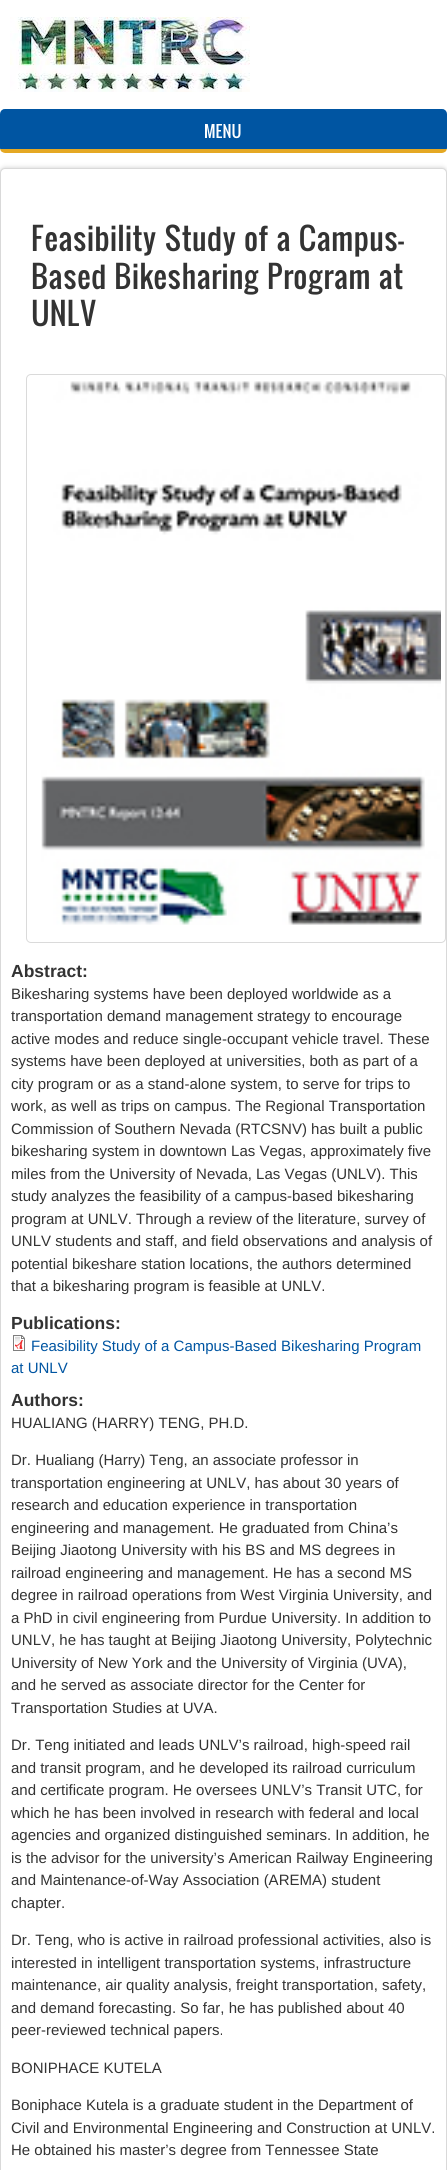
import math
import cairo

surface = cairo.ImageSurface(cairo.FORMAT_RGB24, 447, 2170)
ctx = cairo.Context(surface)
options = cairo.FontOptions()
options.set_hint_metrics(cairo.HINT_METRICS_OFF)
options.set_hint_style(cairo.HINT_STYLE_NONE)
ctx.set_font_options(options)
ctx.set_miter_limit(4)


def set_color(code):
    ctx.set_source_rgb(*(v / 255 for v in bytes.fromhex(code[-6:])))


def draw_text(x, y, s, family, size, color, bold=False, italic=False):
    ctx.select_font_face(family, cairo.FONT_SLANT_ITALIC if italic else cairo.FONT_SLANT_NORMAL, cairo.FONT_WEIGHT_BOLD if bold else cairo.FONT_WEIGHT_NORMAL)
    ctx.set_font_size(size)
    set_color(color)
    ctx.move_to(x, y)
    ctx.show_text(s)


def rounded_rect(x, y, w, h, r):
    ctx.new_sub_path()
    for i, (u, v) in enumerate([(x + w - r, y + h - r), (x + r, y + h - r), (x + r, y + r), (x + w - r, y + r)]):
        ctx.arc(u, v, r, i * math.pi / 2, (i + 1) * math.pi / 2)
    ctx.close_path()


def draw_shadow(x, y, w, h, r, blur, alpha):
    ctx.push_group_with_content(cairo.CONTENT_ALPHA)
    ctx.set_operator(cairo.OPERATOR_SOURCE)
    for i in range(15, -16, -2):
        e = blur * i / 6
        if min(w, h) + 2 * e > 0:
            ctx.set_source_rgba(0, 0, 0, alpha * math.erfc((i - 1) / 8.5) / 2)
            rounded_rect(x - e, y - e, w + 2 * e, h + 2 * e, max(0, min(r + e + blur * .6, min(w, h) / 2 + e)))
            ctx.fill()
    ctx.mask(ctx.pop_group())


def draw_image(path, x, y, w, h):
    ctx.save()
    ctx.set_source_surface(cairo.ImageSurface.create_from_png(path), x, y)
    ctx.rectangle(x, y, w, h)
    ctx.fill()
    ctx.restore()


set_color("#ffffff")
ctx.paint()
draw_image("assets/img1.png", 10, 17, 240, 75)
draw_image("assets/img2.png", 0, 109, 447, 44)
draw_text(204, 138, "MENU", "Oswald", 16, "#ffffff")
set_color("#cccccc")
draw_shadow(0, 168, 447, 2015, 5, 2.5, 1)
set_color("#ffffff")
rounded_rect(0.5, 168.5, 446, 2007, 4.5)
ctx.fill_preserve()
set_color("#d9d9d9")
ctx.set_line_width(1)
ctx.stroke()
draw_text(31, 251, "Feasibility Study of a Campus-", "Oswald", 30, "#333333")
draw_text(31, 289, "Based Bikesharing Program at", "Oswald", 30, "#333333")
draw_text(31, 326, "UNLV", "Oswald", 30, "#333333")
rounded_rect(26.5, 374.5, 419, 568, 4.5)
set_color("#dadada")
ctx.stroke()
draw_image("assets/img3.png", 41, 381, 400, 544)
draw_text(11, 977, "Abstract:", "Liberation Sans", 17.5, "#333333", bold=True)
draw_text(11, 999, "Bikesharing systems have been deployed worldwide as a", "Liberation Sans", 15, "#333333")
draw_text(11, 1021, "transportation demand management strategy to encourage", "Liberation Sans", 15, "#333333")
draw_text(11, 1044, "active modes and reduce single-occupant vehicle travel. These", "Liberation Sans", 15, "#333333")
draw_text(11, 1066, "systems have been deployed at universities, both as part of a", "Liberation Sans", 15, "#333333")
draw_text(11, 1089, "city program or as a stand-alone system, to serve for trips to", "Liberation Sans", 15, "#333333")
draw_text(11, 1111, "work, as well as trips on campus. The Regional Transportation", "Liberation Sans", 15, "#333333")
draw_text(11, 1134, "Commission of Southern Nevada (RTCSNV) has built a public", "Liberation Sans", 15, "#333333")
draw_text(11, 1156, "bikesharing system in downtown Las Vegas, approximately five", "Liberation Sans", 15, "#333333")
draw_text(11, 1179, "miles from the University of Nevada, Las Vegas (UNLV). This", "Liberation Sans", 15, "#333333")
draw_text(11, 1201, "study analyzes the feasibility of a campus-based bikesharing", "Liberation Sans", 15, "#333333")
draw_text(11, 1224, "program at UNLV. Through a review of the literature, survey of", "Liberation Sans", 15, "#333333")
draw_text(11, 1246, "UNLV students and staff, and field observations and analysis of", "Liberation Sans", 15, "#333333")
draw_text(11, 1269, "potential bikeshare station locations, the authors determined", "Liberation Sans", 15, "#333333")
draw_text(11, 1291, "that a bikesharing program is feasible at UNLV.", "Liberation Sans", 15, "#333333")
draw_text(11, 1329, "Publications:", "Liberation Sans", 17.5, "#333333", bold=True)
draw_image("assets/img4.png", 13, 1335, 12, 16)
draw_text(31, 1351, "Feasibility Study of a Campus-Based Bikesharing Program", "Liberation Sans", 15, "#0055a2")
draw_text(11, 1373, "at UNLV", "Liberation Sans", 15, "#0055a2")
draw_text(11, 1406, "Authors:", "Liberation Sans", 17.5, "#333333", bold=True)
draw_text(11, 1428, "HUALIANG (HARRY) TENG, PH.D.", "Liberation Sans", 15, "#333333")
draw_text(11, 1465, "Dr. Hualiang (Harry) Teng, an associate professor in", "Liberation Sans", 15, "#333333")
draw_text(11, 1488, "transportation engineering at UNLV, has about 30 years of", "Liberation Sans", 15, "#333333")
draw_text(11, 1510, "research and education experience in transportation", "Liberation Sans", 15, "#333333")
draw_text(11, 1533, "engineering and management. He graduated from China’s", "Liberation Sans", 15, "#333333")
draw_text(11, 1555, "Beijing Jiaotong University with his BS and MS degrees in", "Liberation Sans", 15, "#333333")
draw_text(11, 1578, "railroad engineering and management. He has a second MS", "Liberation Sans", 15, "#333333")
draw_text(11, 1600, "degree in railroad operations from West Virginia University, and", "Liberation Sans", 15, "#333333")
draw_text(11, 1623, "a PhD in civil engineering from Purdue University. In addition to", "Liberation Sans", 15, "#333333")
draw_text(11, 1645, "UNLV, he has taught at Beijing Jiaotong University, Polytechnic", "Liberation Sans", 15, "#333333")
draw_text(11, 1668, "University of New York and the University of Virginia (UVA),", "Liberation Sans", 15, "#333333")
draw_text(11, 1690, "and he served as associate director for the Center for", "Liberation Sans", 15, "#333333")
draw_text(11, 1713, "Transportation Studies at UVA.", "Liberation Sans", 15, "#333333")
draw_text(11, 1750, "Dr. Teng initiated and leads UNLV’s railroad, high-speed rail", "Liberation Sans", 15, "#333333")
draw_text(11, 1773, "and transit program, and he developed its railroad curriculum", "Liberation Sans", 15, "#333333")
draw_text(11, 1795, "and certificate program. He oversees UNLV’s Transit UTC, for", "Liberation Sans", 15, "#333333")
draw_text(11, 1818, "which he has been involved in research with federal and local", "Liberation Sans", 15, "#333333")
draw_text(11, 1840, "agencies and organized distinguished seminars. In addition, he", "Liberation Sans", 15, "#333333")
draw_text(11, 1863, "is the advisor for the university’s American Railway Engineering", "Liberation Sans", 15, "#333333")
draw_text(11, 1885, "and Maintenance-of-Way Association (AREMA) student", "Liberation Sans", 15, "#333333")
draw_text(11, 1908, "chapter.", "Liberation Sans", 15, "#333333")
draw_text(11, 1945, "Dr. Teng, who is active in railroad professional activities, also is", "Liberation Sans", 15, "#333333")
draw_text(11, 1968, "interested in intelligent transportation systems, infrastructure", "Liberation Sans", 15, "#333333")
draw_text(11, 1990, "maintenance, air quality analysis, freight transportation, safety,", "Liberation Sans", 15, "#333333")
draw_text(11, 2013, "and demand forecasting. So far, he has published about 40", "Liberation Sans", 15, "#333333")
draw_text(11, 2035, "peer-reviewed technical papers.", "Liberation Sans", 15, "#333333")
draw_text(11, 2073, "BONIPHACE KUTELA", "Liberation Sans", 15, "#333333")
draw_text(11, 2110, "Boniphace Kutela is a graduate student in the Department of", "Liberation Sans", 15, "#333333")
draw_text(11, 2133, "Civil and Environmental Engineering and Construction at UNLV.", "Liberation Sans", 15, "#333333")
draw_text(11, 2155, "He obtained his master’s degree from Tennessee State", "Liberation Sans", 15, "#333333")
surface.write_to_png("output.png")
